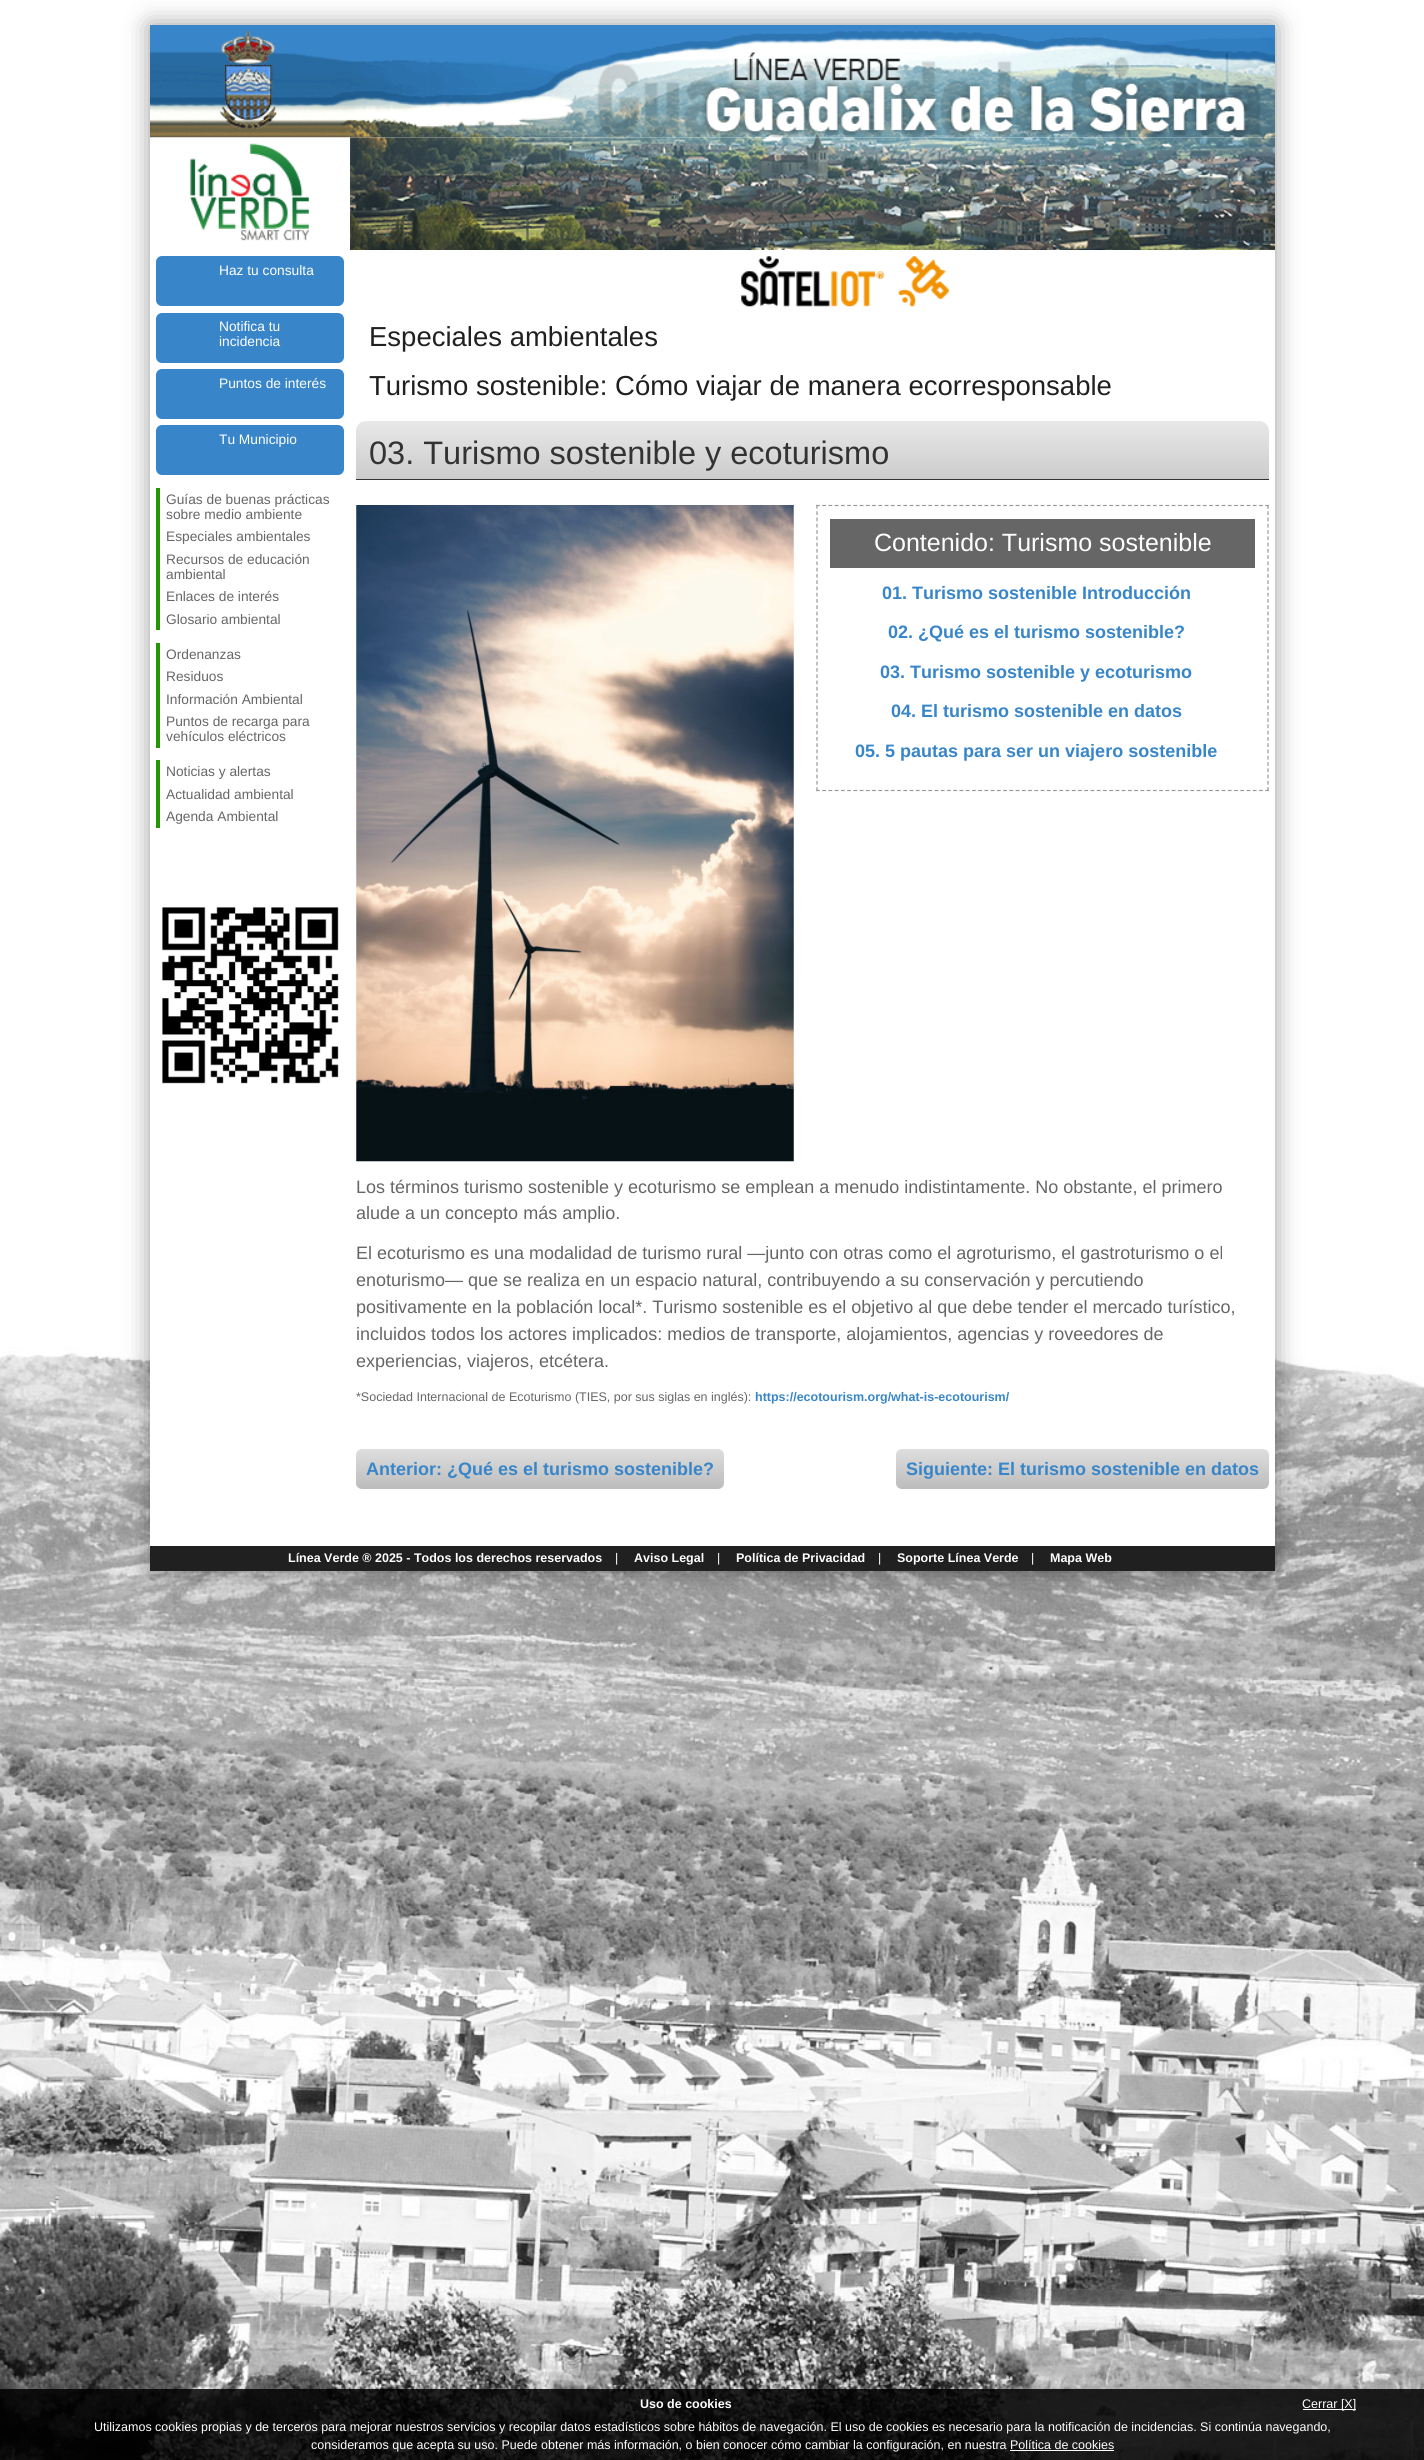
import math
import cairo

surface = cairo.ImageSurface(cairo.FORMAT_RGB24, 1424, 2460)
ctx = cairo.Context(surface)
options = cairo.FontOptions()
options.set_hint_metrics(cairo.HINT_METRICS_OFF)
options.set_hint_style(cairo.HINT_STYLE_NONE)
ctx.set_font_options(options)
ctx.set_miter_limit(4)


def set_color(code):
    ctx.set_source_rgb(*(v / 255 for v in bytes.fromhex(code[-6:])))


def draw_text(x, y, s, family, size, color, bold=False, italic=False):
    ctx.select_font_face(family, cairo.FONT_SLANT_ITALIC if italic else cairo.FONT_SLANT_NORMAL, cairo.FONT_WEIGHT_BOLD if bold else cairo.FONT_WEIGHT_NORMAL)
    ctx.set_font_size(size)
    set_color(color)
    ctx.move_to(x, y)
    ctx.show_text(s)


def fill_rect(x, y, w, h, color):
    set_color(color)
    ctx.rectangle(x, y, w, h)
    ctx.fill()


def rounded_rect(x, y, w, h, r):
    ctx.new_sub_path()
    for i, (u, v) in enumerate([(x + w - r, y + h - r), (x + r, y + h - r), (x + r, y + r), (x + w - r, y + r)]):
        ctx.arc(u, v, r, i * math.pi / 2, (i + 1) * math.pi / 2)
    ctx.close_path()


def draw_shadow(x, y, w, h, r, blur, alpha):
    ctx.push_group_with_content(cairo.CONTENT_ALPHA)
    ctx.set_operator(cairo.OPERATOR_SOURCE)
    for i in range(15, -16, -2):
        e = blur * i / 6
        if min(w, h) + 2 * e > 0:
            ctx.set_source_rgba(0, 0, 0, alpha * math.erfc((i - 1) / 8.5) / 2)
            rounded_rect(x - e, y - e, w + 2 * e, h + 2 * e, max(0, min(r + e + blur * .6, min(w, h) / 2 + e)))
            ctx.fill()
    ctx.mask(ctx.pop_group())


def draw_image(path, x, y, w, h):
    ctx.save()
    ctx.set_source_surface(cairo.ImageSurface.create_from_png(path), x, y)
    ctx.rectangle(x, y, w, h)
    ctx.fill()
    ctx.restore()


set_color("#ffffff")
ctx.paint()
draw_image("assets/img1.png", 0, 1299, 1424, 1161)
set_color("#000000")
draw_shadow(150, 25, 1125, 1546, 0, 12.5, 0.4)
fill_rect(150, 137, 1125, 1409, "#ffffff")
draw_image("assets/img2.png", 150, 25, 1125, 113)
draw_image("assets/img3.png", 150, 137, 200, 104)
draw_image("assets/img4.png", 350, 137, 925, 113)
draw_image("assets/img5.png", 741, 256, 208, 51)
set_color("#3886c9")
rounded_rect(156, 256, 188, 50, 6)
ctx.fill()
draw_text(219, 275, "Haz tu consulta", "Liberation Sans", 13.75, "#ffffff")
set_color("#3886c9")
rounded_rect(156, 313, 188, 50, 6)
ctx.fill()
draw_text(219, 331, "Notifica tu", "Liberation Sans", 13.75, "#ffffff")
draw_text(219, 346, "incidencia", "Liberation Sans", 13.75, "#ffffff")
set_color("#3886c9")
rounded_rect(156, 369, 188, 50, 6)
ctx.fill()
draw_text(219, 388, "Puntos de interés", "Liberation Sans", 13.75, "#ffffff")
set_color("#3886c9")
rounded_rect(156, 425, 188, 50, 6)
ctx.fill()
draw_text(219, 444, "Tu Municipio", "Liberation Sans", 13.75, "#ffffff")
fill_rect(156, 488, 4, 142, "#259603")
draw_text(166, 504, "Guías de buenas prácticas", "Liberation Sans", 13.75, "#666666")
draw_text(166, 519, "sobre medio ambiente", "Liberation Sans", 13.75, "#666666")
draw_text(166, 541, "Especiales ambientales", "Liberation Sans", 13.75, "#666666")
draw_text(166, 564, "Recursos de educación", "Liberation Sans", 13.75, "#666666")
draw_text(166, 579, "ambiental", "Liberation Sans", 13.75, "#666666")
draw_text(166, 601, "Enlaces de interés", "Liberation Sans", 13.75, "#666666")
draw_text(166, 624, "Glosario ambiental", "Liberation Sans", 13.75, "#666666")
fill_rect(156, 643, 4, 105, "#259603")
draw_text(166, 659, "Ordenanzas", "Liberation Sans", 13.75, "#666666")
draw_text(166, 681, "Residuos", "Liberation Sans", 13.75, "#666666")
draw_text(166, 704, "Información Ambiental", "Liberation Sans", 13.75, "#666666")
draw_text(166, 726, "Puntos de recarga para", "Liberation Sans", 13.75, "#666666")
draw_text(166, 741, "vehículos eléctricos", "Liberation Sans", 13.75, "#666666")
fill_rect(156, 760, 4, 68, "#259603")
draw_text(166, 776, "Noticias y alertas", "Liberation Sans", 13.75, "#666666")
draw_text(166, 799, "Actualidad ambiental", "Liberation Sans", 13.75, "#666666")
draw_text(166, 821, "Agenda Ambiental", "Liberation Sans", 13.75, "#666666")
draw_image("assets/img6.png", 162, 907, 177, 177)
draw_text(369, 346, "Especiales ambientales", "Liberation Sans", 27.5, "#202021")
draw_text(369, 395, "Turismo sostenible: Cómo viajar de manera ecorresponsable", "Liberation Sans", 27.5, "#202021")
gradient = cairo.LinearGradient(813, 421, 813, 479)
gradient.add_color_stop_rgba(0, 0.91, 0.91, 0.91, 1)
gradient.add_color_stop_rgba(1, 0.8, 0.8, 0.8, 1)
ctx.set_source(gradient)
ctx.new_path()
ctx.move_to(366, 421)
ctx.line_to(1259, 421)
ctx.curve_to(1264.5, 421, 1269, 425.5, 1269, 431)
ctx.line_to(1269, 479)
ctx.line_to(356, 479)
ctx.line_to(356, 431)
ctx.curve_to(356, 425.5, 360.5, 421, 366, 421)
ctx.close_path()
ctx.fill()
fill_rect(356, 479, 913, 1, "#333333")
draw_text(369, 464, "03. Turismo sostenible y ecoturismo", "Liberation Sans", 32.5, "#333333")
draw_image("assets/img7.png", 356, 505, 438, 657)
ctx.new_path()
ctx.move_to(816, 505.5)
ctx.line_to(1269, 505.5)
set_color("#999999")
ctx.set_line_width(1.2)
ctx.set_dash([3.75, 2.49])
ctx.stroke()
ctx.new_path()
ctx.move_to(1268, 505)
ctx.line_to(1268, 791)
ctx.set_dash([3.75, 2.52])
ctx.stroke()
ctx.new_path()
ctx.move_to(816, 790.5)
ctx.line_to(1269, 790.5)
ctx.set_dash([3.75, 2.49])
ctx.stroke()
ctx.new_path()
ctx.move_to(817, 505)
ctx.line_to(817, 791)
ctx.set_dash([3.75, 2.52])
ctx.stroke()
fill_rect(830, 519, 425, 49, "#666666")
draw_text(874, 551, "Contenido: Turismo sostenible", "Liberation Sans", 25, "#ffffff")
draw_text(882, 599, "01. Turismo sostenible Introducción", "Liberation Sans", 18, "#3886c9", bold=True)
draw_text(888, 638, "02. ¿Qué es el turismo sostenible?", "Liberation Sans", 18, "#3886c9", bold=True)
draw_text(880, 678, "03. Turismo sostenible y ecoturismo", "Liberation Sans", 18, "#3886c9", bold=True)
draw_text(891, 717, "04. El turismo sostenible en datos", "Liberation Sans", 18, "#3886c9", bold=True)
draw_text(855, 757, "05. 5 pautas para ser un viajero sostenible", "Liberation Sans", 18, "#3886c9", bold=True)
draw_text(356, 1193, "Los términos turismo sostenible y ecoturismo se emplean a menudo indistintamente. No obstante, el primero", "Liberation Sans", 18, "#666666")
draw_text(356, 1219, "alude a un concepto más amplio.", "Liberation Sans", 18, "#666666")
draw_text(356, 1259, "El ecoturismo es una modalidad de turismo rural —junto con otras como el agroturismo, el gastroturismo o el", "Liberation Sans", 18, "#666666")
draw_text(356, 1286, "enoturismo— que se realiza en un espacio natural, contribuyendo a su conservación y percutiendo", "Liberation Sans", 18, "#666666")
draw_text(356, 1313, "positivamente en la población local*. Turismo sostenible es el objetivo al que debe tender el mercado turístico,", "Liberation Sans", 18, "#666666")
draw_text(356, 1340, "incluidos todos los actores implicados: medios de transporte, alojamientos, agencias y roveedores de", "Liberation Sans", 18, "#666666")
draw_text(356, 1367, "experiencias, viajeros, etcétera.", "Liberation Sans", 18, "#666666")
draw_text(356, 1401, "*Sociedad Internacional de Ecoturismo (TIES, por sus siglas en inglés):", "Liberation Sans", 12.5, "#666666")
draw_text(755, 1401, "https://ecotourism.org/what-is-ecotourism/", "Liberation Sans", 12.5, "#3886c9", bold=True)
gradient = cairo.LinearGradient(540, 1449, 540, 1489)
gradient.add_color_stop_rgba(0, 0.871, 0.871, 0.871, 1)
gradient.add_color_stop_rgba(1, 0.737, 0.737, 0.737, 1)
ctx.set_source(gradient)
rounded_rect(356, 1449, 368, 40, 6)
ctx.fill()
draw_text(366, 1475, "Anterior: ¿Qué es el turismo sostenible?", "Liberation Sans", 18, "#3886c9", bold=True)
gradient = cairo.LinearGradient(1083, 1449, 1083, 1489)
gradient.add_color_stop_rgba(0, 0.871, 0.871, 0.871, 1)
gradient.add_color_stop_rgba(1, 0.737, 0.737, 0.737, 1)
ctx.set_source(gradient)
rounded_rect(896, 1449, 373, 40, 6)
ctx.fill()
draw_text(906, 1475, "Siguiente: El turismo sostenible en datos", "Liberation Sans", 18, "#3886c9", bold=True)
fill_rect(150, 1546, 1125, 25, "#202021")
draw_text(288, 1562, "Línea Verde ® 2025 - Todos los derechos reservados", "Liberation Sans", 12.5, "#ffffff", bold=True)
draw_text(615, 1562, "|", "Liberation Sans", 12.5, "#ffffff")
draw_text(634, 1562, "Aviso Legal", "Liberation Sans", 12.5, "#ffffff", bold=True)
draw_text(717, 1562, "|", "Liberation Sans", 12.5, "#ffffff")
draw_text(736, 1562, "Política de Privacidad", "Liberation Sans", 12.5, "#ffffff", bold=True)
draw_text(878, 1562, "|", "Liberation Sans", 12.5, "#ffffff")
draw_text(897, 1562, "Soporte Línea Verde", "Liberation Sans", 12.5, "#ffffff", bold=True)
draw_text(1031, 1562, "|", "Liberation Sans", 12.5, "#ffffff")
draw_text(1050, 1562, "Mapa Web", "Liberation Sans", 12.5, "#ffffff", bold=True)
ctx.set_source_rgba(0, 0, 0, 0.85)
ctx.rectangle(0, 2389, 1424, 71)
ctx.fill()
draw_text(640, 2408, "Uso de cookies", "Liberation Sans", 12.5, "#ffffff", bold=True)
fill_rect(1303, 2409, 53, 1, "#ffffff")
draw_text(1302, 2408, "Cerrar [X]", "Liberation Sans", 12.5, "#ffffff")
draw_text(94, 2431, "Utilizamos cookies propias y de terceros para mejorar nuestros servicios y recopilar datos estadísticos sobre hábitos de navegación. El uso de cookies es necesario para la notificación de incidencias. Si continúa navegando,", "Liberation Sans", 12.5, "#ffffff")
draw_text(311, 2449, "consideramos que acepta su uso. Puede obtener más información, o bien conocer cómo cambiar la configuración, en nuestra Política de cookies", "Liberation Sans", 12.5, "#ffffff")
fill_rect(1010, 2450, 104, 1, "#ffffff")
surface.write_to_png("output.png")
